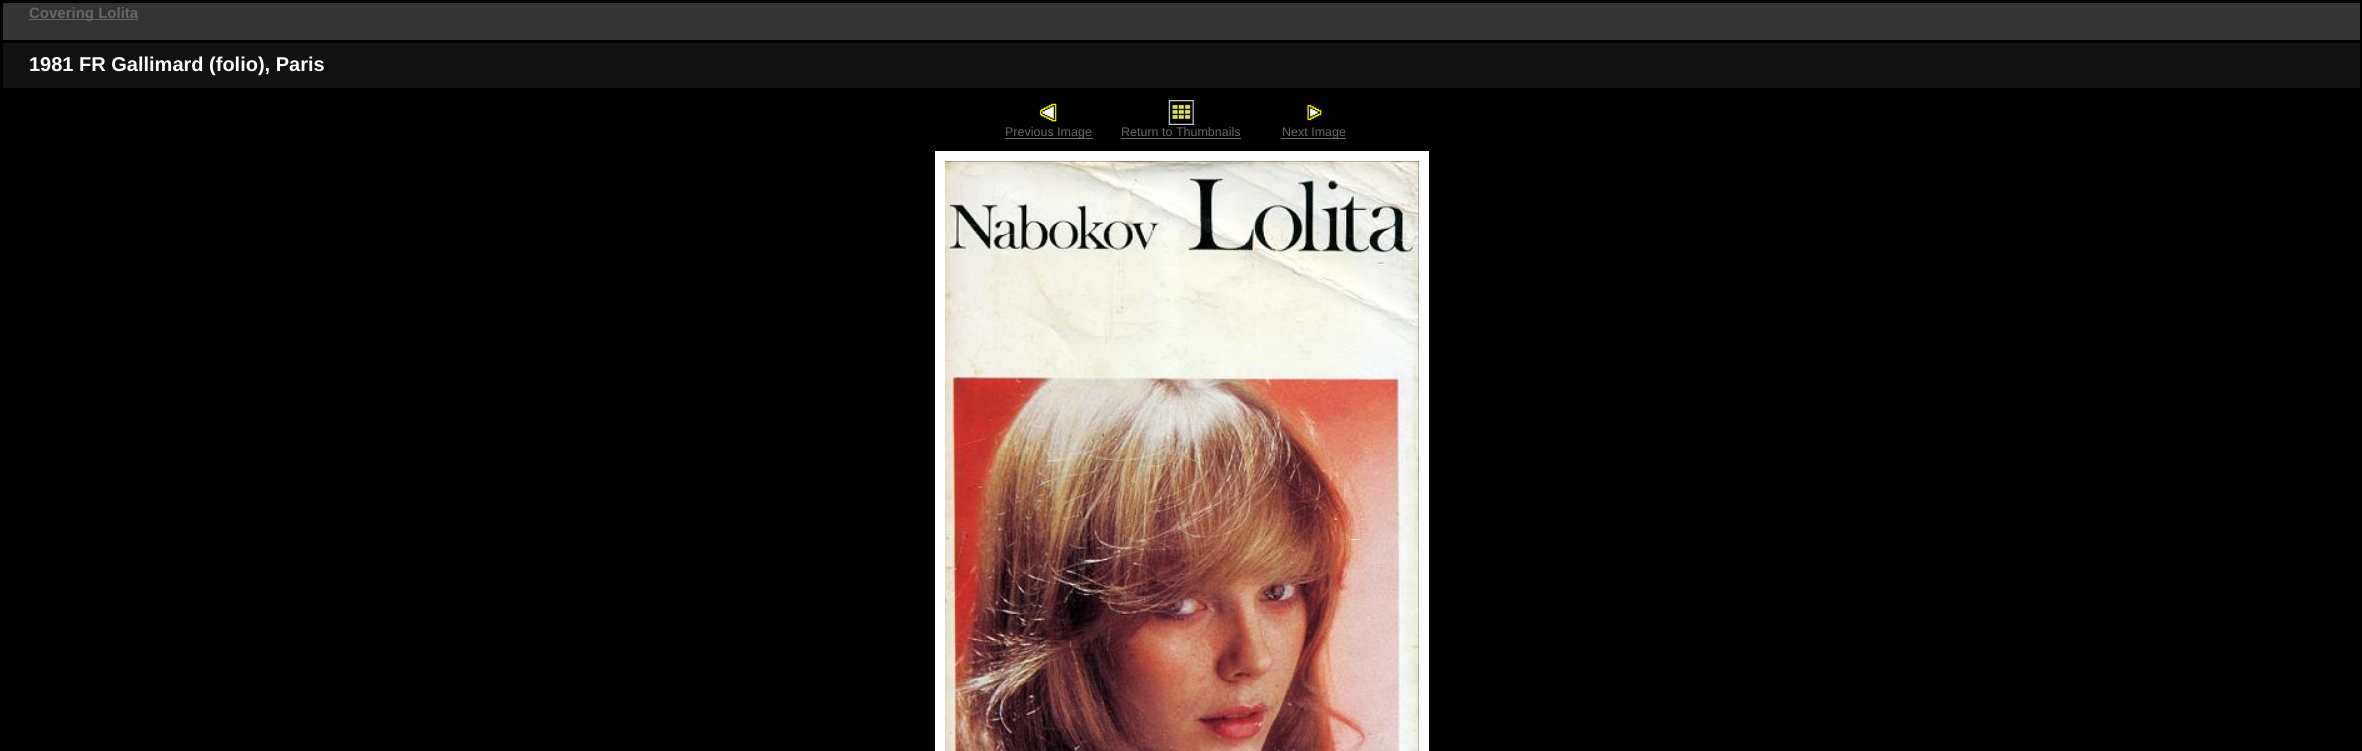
import math
import cairo

surface = cairo.ImageSurface(cairo.FORMAT_RGB24, 2362, 751)
ctx = cairo.Context(surface)
options = cairo.FontOptions()
options.set_hint_metrics(cairo.HINT_METRICS_OFF)
options.set_hint_style(cairo.HINT_STYLE_NONE)
ctx.set_font_options(options)
ctx.set_miter_limit(4)


def set_color(code):
    ctx.set_source_rgb(*(v / 255 for v in bytes.fromhex(code[-6:])))


def draw_text(x, y, s, family, size, color, bold=False, italic=False):
    ctx.select_font_face(family, cairo.FONT_SLANT_ITALIC if italic else cairo.FONT_SLANT_NORMAL, cairo.FONT_WEIGHT_BOLD if bold else cairo.FONT_WEIGHT_NORMAL)
    ctx.set_font_size(size)
    set_color(color)
    ctx.move_to(x, y)
    ctx.show_text(s)


def fill_rect(x, y, w, h, color):
    set_color(color)
    ctx.rectangle(x, y, w, h)
    ctx.fill()


def draw_image(path, x, y, w, h):
    ctx.save()
    ctx.set_source_surface(cairo.ImageSurface.create_from_png(path), x, y)
    ctx.rectangle(x, y, w, h)
    ctx.fill()
    ctx.restore()


set_color("#000000")
ctx.paint()
fill_rect(3, 3, 2357, 37, "#333333")
fill_rect(29, 19, 109, 1, "#666666")
draw_text(29, 18, "Covering Lolita", "Liberation Sans", 15, "#666666", bold=True)
fill_rect(3, 43, 2357, 45, "#111111")
draw_text(29, 71, "1981 FR Gallimard (folio), Paris", "Liberation Sans", 20, "#ffffff", bold=True)
draw_image("assets/img1.png", 1039, 103, 18, 19)
fill_rect(1005, 138, 88, 1, "#666666")
draw_text(1005, 136, "Previous Image", "Liberation Sans", 12.5, "#666666")
draw_image("assets/img2.png", 1168, 100, 26, 25)
draw_text(1121, 136, "Return to Thumbnails", "Liberation Sans", 12.5, "#666666")
fill_rect(1121, 138, 120, 1, "#666666")
draw_image("assets/img3.png", 1307, 104, 15, 17)
fill_rect(1281, 138, 65, 1, "#666666")
draw_text(1282, 136, "Next Image", "Liberation Sans", 12.5, "#666666")
ctx.rectangle(940, 156, 484, 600)
set_color("#ffffff")
ctx.set_line_width(10)
ctx.stroke()
draw_image("assets/img4.png", 945, 161, 474, 590)
surface.write_to_png("output.png")
